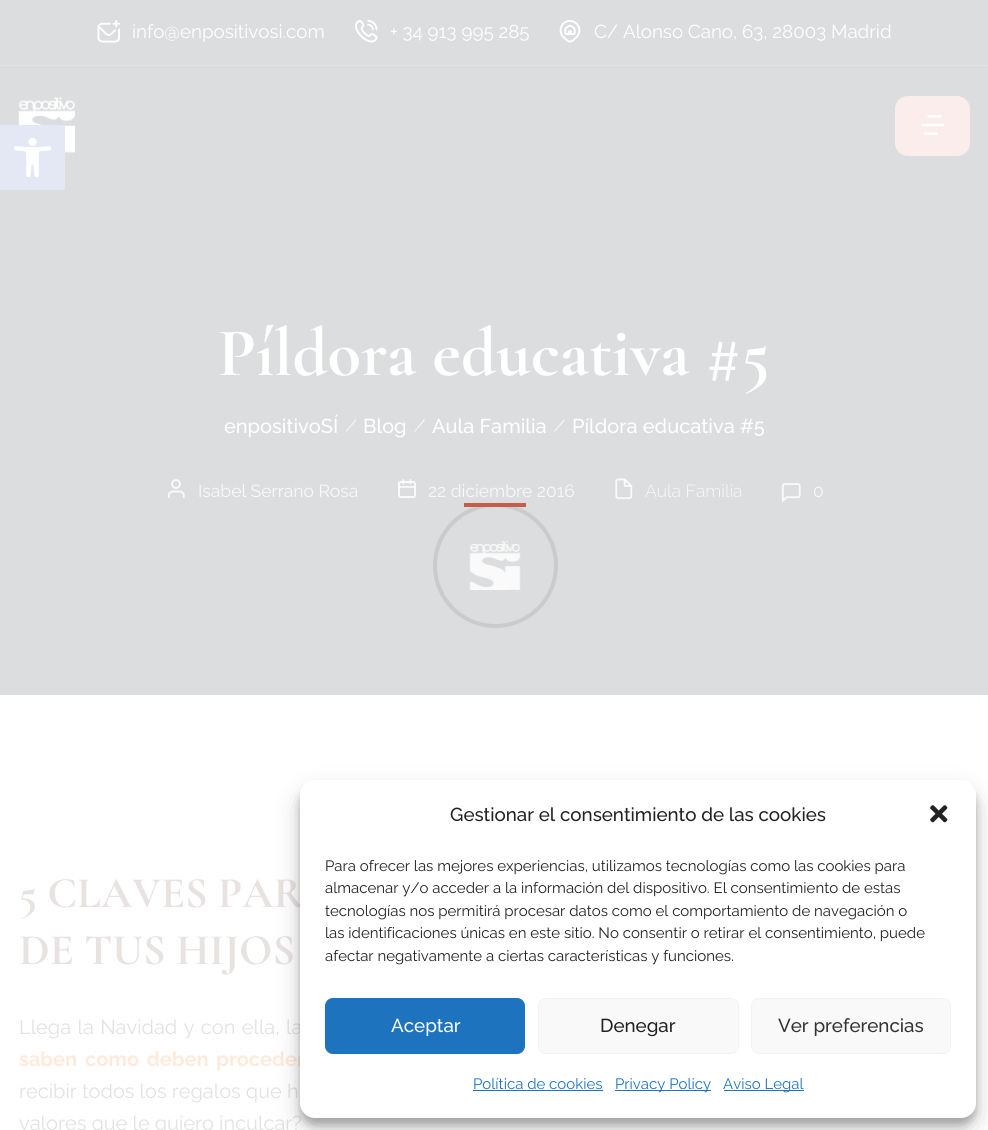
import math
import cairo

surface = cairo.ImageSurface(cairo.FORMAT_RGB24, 988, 1130)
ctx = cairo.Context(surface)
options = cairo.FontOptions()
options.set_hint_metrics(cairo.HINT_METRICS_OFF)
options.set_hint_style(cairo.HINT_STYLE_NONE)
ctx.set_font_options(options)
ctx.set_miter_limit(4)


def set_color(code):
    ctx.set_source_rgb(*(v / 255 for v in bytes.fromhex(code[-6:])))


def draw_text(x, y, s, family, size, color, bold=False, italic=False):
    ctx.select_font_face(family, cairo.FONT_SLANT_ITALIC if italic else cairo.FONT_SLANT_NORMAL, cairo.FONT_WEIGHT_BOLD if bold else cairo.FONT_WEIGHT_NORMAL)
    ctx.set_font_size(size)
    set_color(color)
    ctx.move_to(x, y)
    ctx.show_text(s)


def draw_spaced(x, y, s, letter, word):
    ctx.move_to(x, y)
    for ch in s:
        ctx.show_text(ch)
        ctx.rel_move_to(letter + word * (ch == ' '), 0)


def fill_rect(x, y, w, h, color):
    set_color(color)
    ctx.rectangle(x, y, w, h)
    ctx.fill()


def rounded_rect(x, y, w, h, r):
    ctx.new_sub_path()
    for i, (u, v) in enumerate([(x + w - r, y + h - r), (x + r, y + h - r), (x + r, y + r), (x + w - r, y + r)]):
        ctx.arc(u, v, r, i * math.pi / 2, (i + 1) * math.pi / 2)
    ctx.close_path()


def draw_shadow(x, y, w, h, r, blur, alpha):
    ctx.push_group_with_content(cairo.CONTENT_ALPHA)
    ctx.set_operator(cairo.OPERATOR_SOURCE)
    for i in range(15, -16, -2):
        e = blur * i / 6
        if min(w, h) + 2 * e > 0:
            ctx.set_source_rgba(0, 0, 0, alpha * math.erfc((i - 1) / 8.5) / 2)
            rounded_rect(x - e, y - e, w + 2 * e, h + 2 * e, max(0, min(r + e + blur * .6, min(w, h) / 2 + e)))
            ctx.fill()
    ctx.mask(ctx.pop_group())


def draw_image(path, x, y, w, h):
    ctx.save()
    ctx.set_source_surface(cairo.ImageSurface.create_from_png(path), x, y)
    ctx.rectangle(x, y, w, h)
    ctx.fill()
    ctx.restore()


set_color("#ffffff")
ctx.paint()
fill_rect(0, 0, 988, 695, "#dbddde")
fill_rect(0, 65, 988, 1, "#e2e4e5")
draw_image("assets/img1.png", 97, 20, 23, 23)
draw_text(132, 38, "info@enpositivosi.com", "Raleway", 18.75, "#ffffff")
draw_image("assets/img2.png", 355, 20, 23, 23)
draw_text(390, 38, "+ 34 913 995 285", "Raleway", 18.75, "#ffffff")
draw_image("assets/img3.png", 559, 20, 22, 23)
draw_text(594, 38, "C/ Alonso Cano, 63, 28003 Madrid", "Raleway", 18.75, "#ffffff")
draw_image("assets/img4.png", 18, 97, 57, 56)
set_color("#fbedeb")
rounded_rect(895, 96, 75, 60, 13)
ctx.fill()
draw_image("assets/img5.png", 921, 115, 23, 20)
draw_text(218, 375, "Píldora educativa #5", "Cormorant Garamond", 68.75, "#ffffff", bold=True)
draw_text(224, 433, "enpositivoSÍ", "Raleway Medium", 20, "#ffffff")
ctx.new_path()
ctx.move_to(346, 431)
ctx.line_to(356, 419)
ctx.line_to(356, 420.5)
ctx.line_to(346, 432)
ctx.close_path()
ctx.fill()
draw_text(363, 433, "Blog", "Raleway Medium", 20, "#ffffff")
ctx.new_path()
ctx.move_to(414.5, 431)
ctx.line_to(424.5, 419)
ctx.line_to(424.5, 420.5)
ctx.line_to(414.5, 432)
ctx.close_path()
ctx.fill()
draw_text(432, 433, "Aula Familia", "Raleway Medium", 20, "#ffffff")
ctx.new_path()
ctx.move_to(554.5, 431)
ctx.line_to(564.5, 419)
ctx.line_to(564.5, 420.5)
ctx.line_to(554.5, 432)
ctx.close_path()
ctx.fill()
draw_text(572, 433, "Píldora educativa #5", "Raleway Medium", 20, "#ffffff")
draw_image("assets/img6.png", 167, 479, 18, 20)
draw_text(198, 497, "Isabel Serrano Rosa", "Raleway", 17.5, "#f9f9f9")
draw_image("assets/img7.png", 398, 479, 18, 19)
draw_text(428, 497, "22 diciembre 2016", "Raleway", 17.5, "#f9f9f9")
draw_image("assets/img8.png", 615, 478, 18, 22)
draw_text(645, 497, "Aula Familia", "Raleway Light", 17.5, "#f9f9f9")
draw_image("assets/img9.png", 781, 483, 20, 19)
draw_text(813, 497, "0", "Raleway", 17.5, "#f9f9f9")
draw_text(19, 907, "5 CLAVES PAR", "Cormorant Garamond", 43.75, "#e8e2e1", bold=True)
draw_text(19, 964, "DE TUS HIJOS", "Cormorant Garamond", 43.75, "#e8e2e1", bold=True)
ctx.select_font_face("Raleway")
ctx.set_font_size(20)
set_color("#e2e2e2")
draw_spaced(19, 1034, "Llega la Navidad y con ella, la", 0, 1.25)
ctx.select_font_face("Raleway", cairo.FONT_SLANT_NORMAL, cairo.FONT_WEIGHT_BOLD)
set_color("#ffeadb")
draw_spaced(19, 1066, "saben como deben proceder", 0, 3)
draw_text(19, 1098, "recibir todos los regalos que h", "Raleway", 20, "#e2e2e2")
draw_text(19, 1130, "valores que le quiero inculcar?", "Raleway", 20, "#e2e2e2")
fill_rect(0, 125, 65, 65, "#e4e7f4")
draw_image("assets/img10.png", 13, 138, 39, 40)
ctx.arc(495.5, 565.5, 60.5, 0, 2 * math.pi)
set_color("#cacbcd")
ctx.set_line_width(4)
ctx.stroke()
fill_rect(464, 503, 62, 4, "#c45d4b")
draw_image("assets/img11.png", 469, 541, 52, 49)
set_color("#000000")
draw_shadow(300, 788, 676, 337, 15, 4, 0.23)
draw_shadow(300, 793, 676, 337, 15, 12.5, 0.19)
set_color("#ffffff")
rounded_rect(300, 780, 676, 338, 15)
ctx.fill()
draw_text(450, 821, "Gestionar el consentimiento de las cookies", "Raleway Medium", 18.75, "#222222")
draw_image("assets/img12.png", 930, 805, 18, 18)
draw_text(325, 871, "Para ofrecer las mejores experiencias, utilizamos tecnologías como las cookies para", "Raleway", 15, "#222222")
draw_text(325, 893, "almacenar y/o acceder a la información del dispositivo. El consentimiento de estas", "Raleway", 15, "#222222")
draw_text(325, 916, "tecnologías nos permitirá procesar datos como el comportamiento de navegación o", "Raleway", 15, "#222222")
draw_text(325, 938, "las identificaciones únicas en este sitio. No consentir o retirar el consentimiento, puede", "Raleway", 15, "#222222")
draw_text(325, 961, "afectar negativamente a ciertas características y funciones.", "Raleway", 15, "#222222")
set_color("#1e73be")
rounded_rect(325.5, 998.5, 199, 55, 7.5)
ctx.fill_preserve()
ctx.set_line_width(1)
ctx.stroke()
draw_text(391, 1032, "Aceptar", "Raleway Medium", 18.75, "#ffffff")
set_color("#f9f9f9")
rounded_rect(538.5, 998.5, 200, 55, 7.5)
ctx.fill_preserve()
set_color("#f2f2f2")
ctx.stroke()
draw_text(600, 1032, "Denegar", "Raleway Medium", 18.75, "#222222")
set_color("#f9f9f9")
rounded_rect(751.5, 998.5, 199, 55, 7.5)
ctx.fill_preserve()
set_color("#f2f2f2")
ctx.stroke()
draw_text(778, 1032, "Ver preferencias", "Raleway Medium", 18.75, "#333333")
draw_text(473, 1089, "Política de cookies", "Raleway", 15, "#1e73be")
fill_rect(473, 1090, 130, 1, "#1e73be")
fill_rect(615, 1090, 96, 1, "#1e73be")
draw_text(615, 1089, "Privacy Policy", "Raleway", 15, "#1e73be")
fill_rect(724, 1090, 80, 1, "#1e73be")
draw_text(723, 1089, "Aviso Legal", "Raleway", 15, "#1e73be")
surface.write_to_png("output.png")
